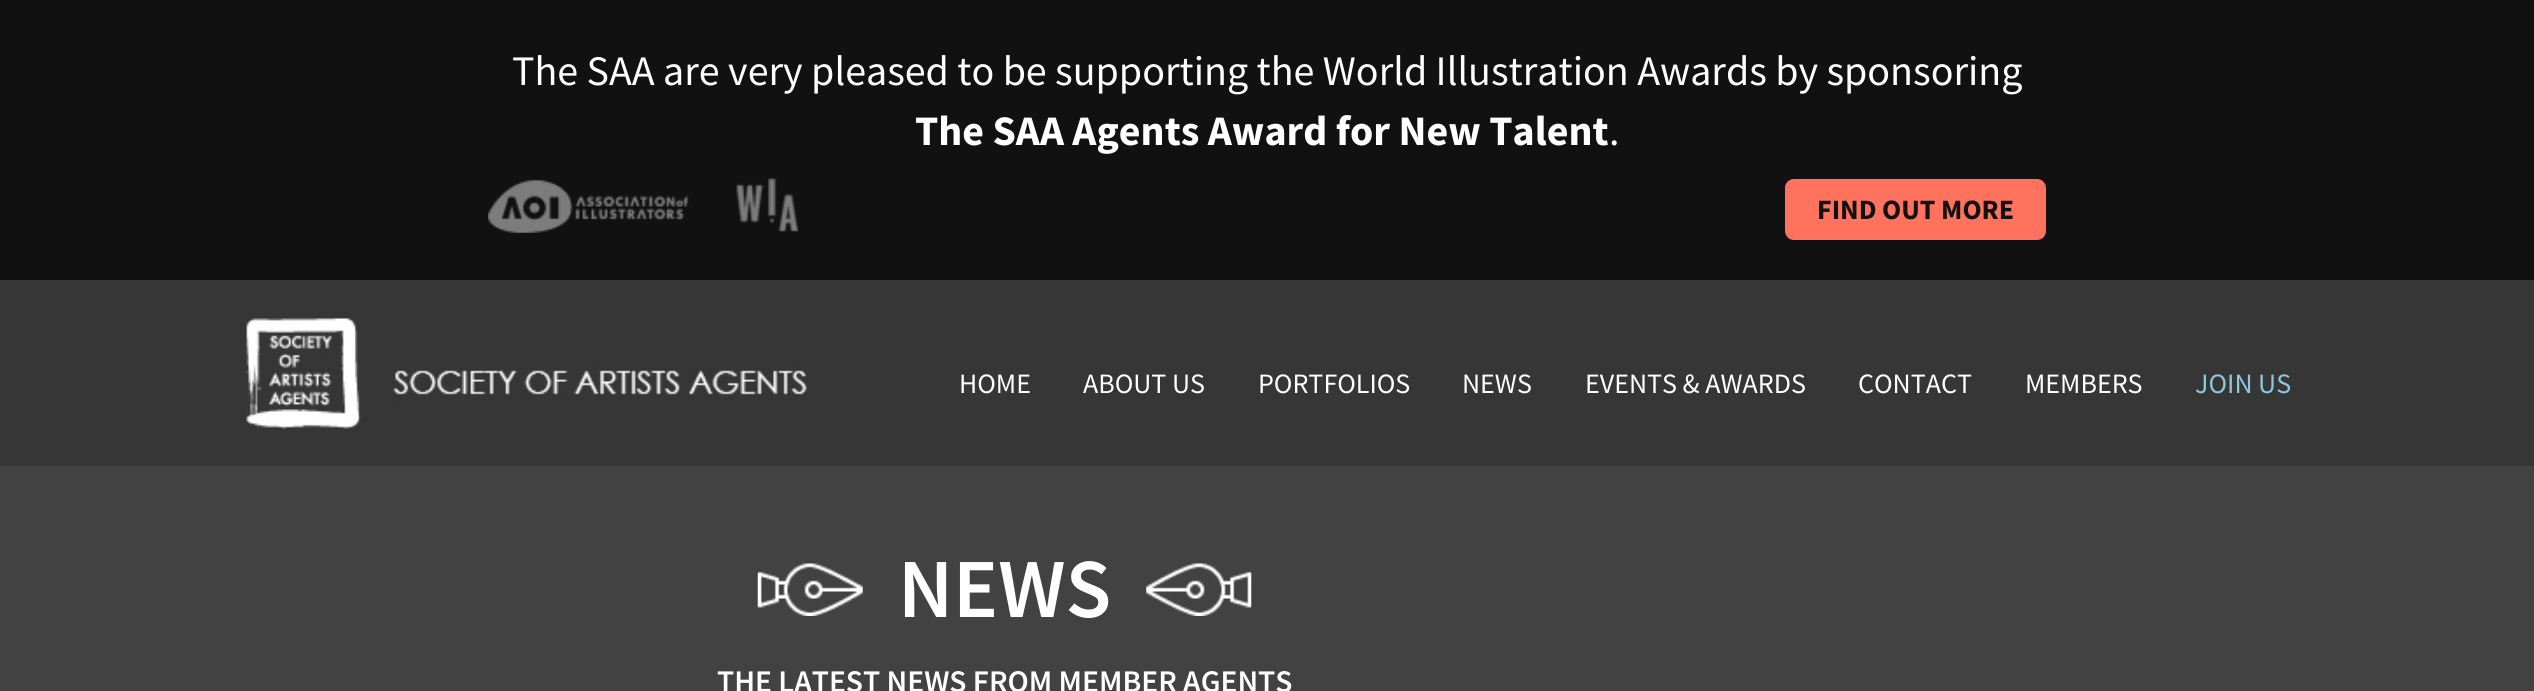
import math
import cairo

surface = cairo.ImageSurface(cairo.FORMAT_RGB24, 2534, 691)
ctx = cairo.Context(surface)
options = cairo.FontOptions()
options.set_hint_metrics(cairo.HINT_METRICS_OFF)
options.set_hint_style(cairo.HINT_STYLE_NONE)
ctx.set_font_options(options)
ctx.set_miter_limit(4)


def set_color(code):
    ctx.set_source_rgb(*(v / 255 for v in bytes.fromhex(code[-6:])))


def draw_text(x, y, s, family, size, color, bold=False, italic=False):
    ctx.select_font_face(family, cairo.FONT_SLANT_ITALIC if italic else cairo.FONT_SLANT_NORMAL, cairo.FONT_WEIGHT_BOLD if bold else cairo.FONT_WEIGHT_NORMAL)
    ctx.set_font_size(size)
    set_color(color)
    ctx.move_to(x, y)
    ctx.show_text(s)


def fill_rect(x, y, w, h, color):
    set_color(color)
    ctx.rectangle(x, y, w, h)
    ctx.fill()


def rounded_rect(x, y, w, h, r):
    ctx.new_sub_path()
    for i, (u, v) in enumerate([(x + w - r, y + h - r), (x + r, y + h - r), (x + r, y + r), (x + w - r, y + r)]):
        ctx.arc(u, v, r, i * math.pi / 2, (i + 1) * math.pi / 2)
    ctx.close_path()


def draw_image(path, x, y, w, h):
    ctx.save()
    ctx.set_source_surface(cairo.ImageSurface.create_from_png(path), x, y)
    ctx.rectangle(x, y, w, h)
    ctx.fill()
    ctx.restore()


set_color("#111111")
ctx.paint()
draw_text(512, 85, "The SAA are very pleased to be supporting the World Illustration Awards by sponsoring", "Source Sans Pro", 42, "#ffffff")
draw_text(915, 145, "The SAA Agents Award for New Talent", "Source Sans Pro", 42, "#ffffff", bold=True)
draw_text(1609, 145, ".", "Source Sans Pro", 42, "#ffffff")
draw_image("assets/img1.png", 488, 178, 310, 55)
set_color("#ff735e")
rounded_rect(1785, 179, 261, 61, 9)
ctx.fill()
draw_text(1817, 219, "FIND OUT MORE", "Source Sans Pro", 28, "#111111", bold=True)
fill_rect(0, 280, 2534, 186, "#363636")
draw_image("assets/img2.png", 246, 318, 561, 111)
draw_text(959, 393, "HOME", "Source Sans Pro", 28, "#ffffff")
draw_text(1083, 393, "ABOUT US", "Source Sans Pro", 28, "#ffffff")
draw_text(1258, 393, "PORTFOLIOS", "Source Sans Pro", 28, "#ffffff")
draw_text(1462, 393, "NEWS", "Source Sans Pro", 28, "#ffffff")
draw_text(1585, 393, "EVENTS & AWARDS", "Source Sans Pro", 28, "#ffffff")
draw_text(1858, 393, "CONTACT", "Source Sans Pro", 28, "#ffffff")
draw_text(2025, 393, "MEMBERS", "Source Sans Pro", 28, "#ffffff")
draw_text(2195, 393, "JOIN US", "Source Sans Pro", 28, "#8bc9de")
fill_rect(0, 466, 2534, 225, "#424242")
draw_image("assets/img3.png", 757, 563, 106, 53)
draw_text(898, 617, "NEWS", "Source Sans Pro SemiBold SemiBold", 84, "#ffffff")
draw_image("assets/img4.png", 1146, 563, 106, 53)
draw_text(717, 692, "THE LATEST NEWS FROM MEMBER AGENTS", "Source Sans Pro SemiBold SemiBold", 31.5, "#ffffff")
surface.write_to_png("output.png")
